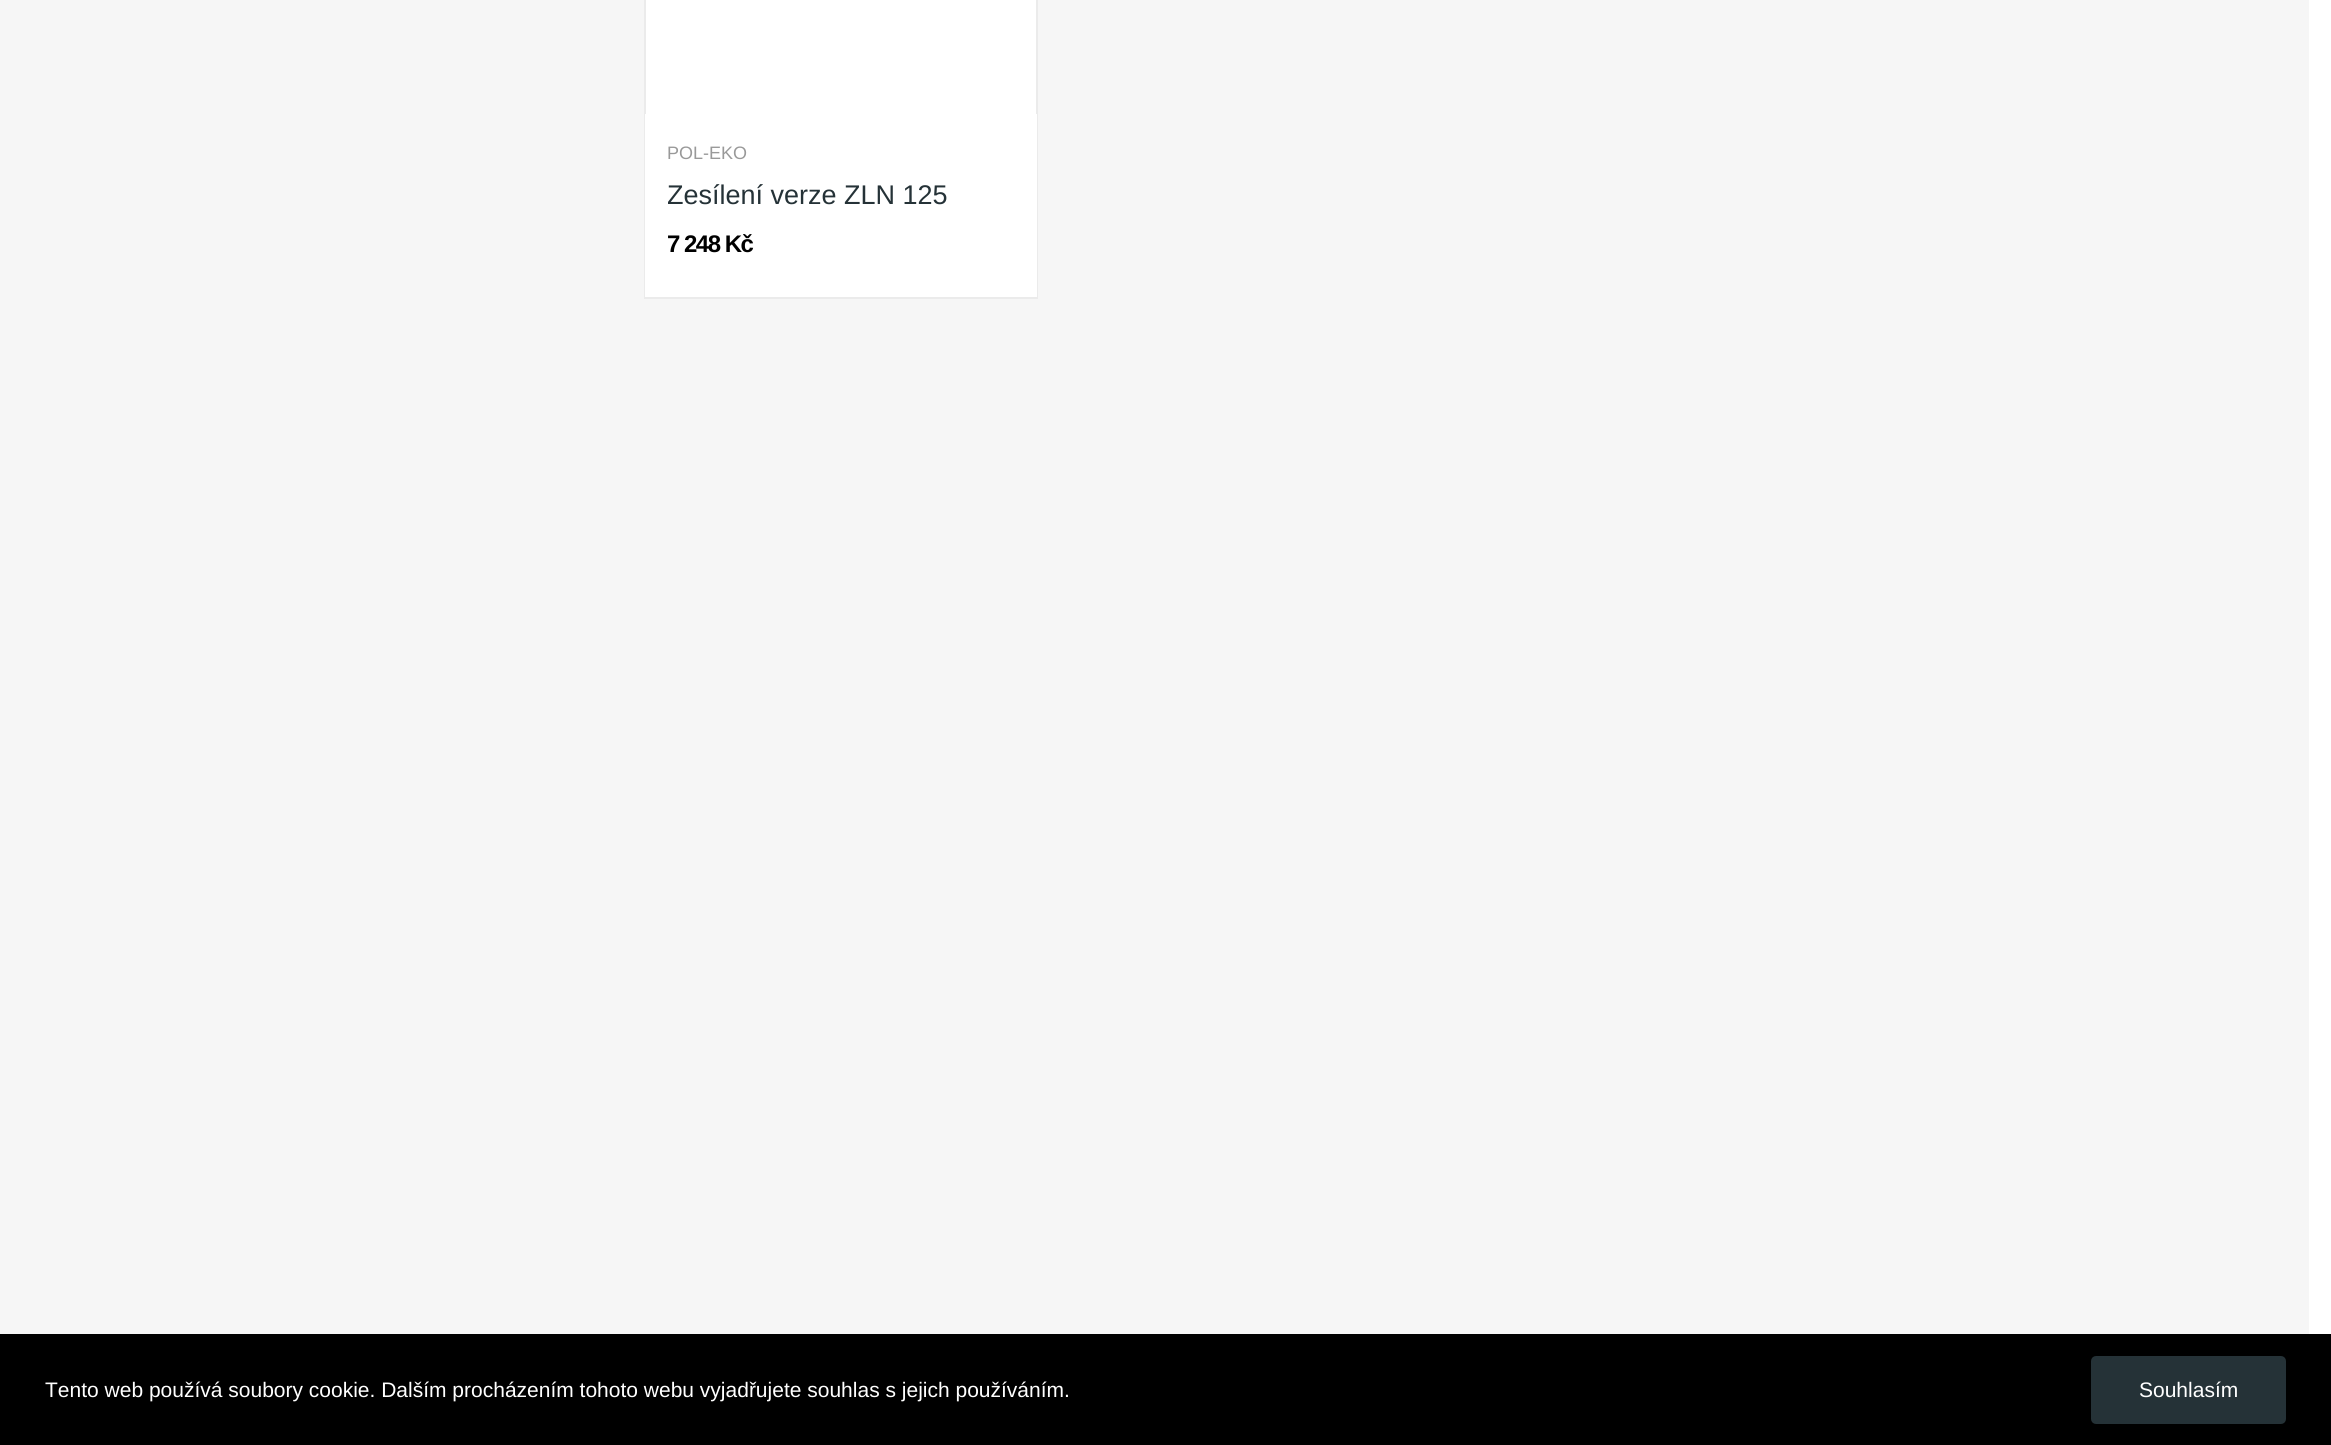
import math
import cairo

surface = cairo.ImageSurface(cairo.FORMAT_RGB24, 2331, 1445)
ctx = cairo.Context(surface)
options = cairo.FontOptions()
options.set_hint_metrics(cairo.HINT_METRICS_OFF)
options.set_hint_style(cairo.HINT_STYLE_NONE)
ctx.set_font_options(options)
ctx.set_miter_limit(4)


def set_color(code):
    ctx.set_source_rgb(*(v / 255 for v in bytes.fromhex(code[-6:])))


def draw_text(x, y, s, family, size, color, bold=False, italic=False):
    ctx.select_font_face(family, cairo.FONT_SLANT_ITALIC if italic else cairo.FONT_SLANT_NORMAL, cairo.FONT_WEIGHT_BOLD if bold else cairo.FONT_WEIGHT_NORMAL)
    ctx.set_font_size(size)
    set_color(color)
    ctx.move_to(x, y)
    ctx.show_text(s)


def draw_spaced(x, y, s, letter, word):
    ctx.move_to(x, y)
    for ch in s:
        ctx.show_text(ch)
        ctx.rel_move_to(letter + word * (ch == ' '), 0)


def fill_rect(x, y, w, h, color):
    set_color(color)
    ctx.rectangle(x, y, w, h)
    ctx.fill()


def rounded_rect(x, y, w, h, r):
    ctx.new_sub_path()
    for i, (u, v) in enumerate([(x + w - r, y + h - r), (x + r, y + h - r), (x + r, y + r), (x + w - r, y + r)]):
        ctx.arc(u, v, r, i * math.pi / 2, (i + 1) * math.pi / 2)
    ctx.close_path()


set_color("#ffffff")
ctx.paint()
fill_rect(0, 0, 2309, 1334, "#f6f6f6")
fill_rect(646, 0, 390, 114, "#ffffff")
ctx.rectangle(645, -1, 392, 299)
set_color("#ebebeb")
ctx.stroke()
fill_rect(645, 114, 392, 183, "#ffffff")
draw_text(667, 159, "POL-EKO", "Liberation Sans", 18, "#999999")
ctx.save()
ctx.rectangle(668, 177, 346, 38)
ctx.clip()
draw_text(667, 204, "Zesílení verze ZLN 125", "Liberation Sans", 27, "#253237")
ctx.restore()
ctx.select_font_face("Liberation Sans", cairo.FONT_SLANT_NORMAL, cairo.FONT_WEIGHT_BOLD)
ctx.set_font_size(24)
set_color("#000000")
draw_spaced(667, 252, "7 248 Kč", -1.5, 0)
fill_rect(0, 1334, 2331, 111, "#000000")
draw_text(45, 1397, "Tento web používá soubory cookie. Dalším procházením tohoto webu vyjadřujete souhlas s jejich používáním.", "Liberation Sans", 21, "#ffffff")
set_color("#253237")
rounded_rect(2092.5, 1357.5, 192, 65, 3.5)
ctx.fill_preserve()
ctx.set_line_width(3)
ctx.stroke()
draw_text(2139, 1397, "Souhlasím", "Liberation Sans", 21, "#ffffff")
surface.write_to_png("output.png")
